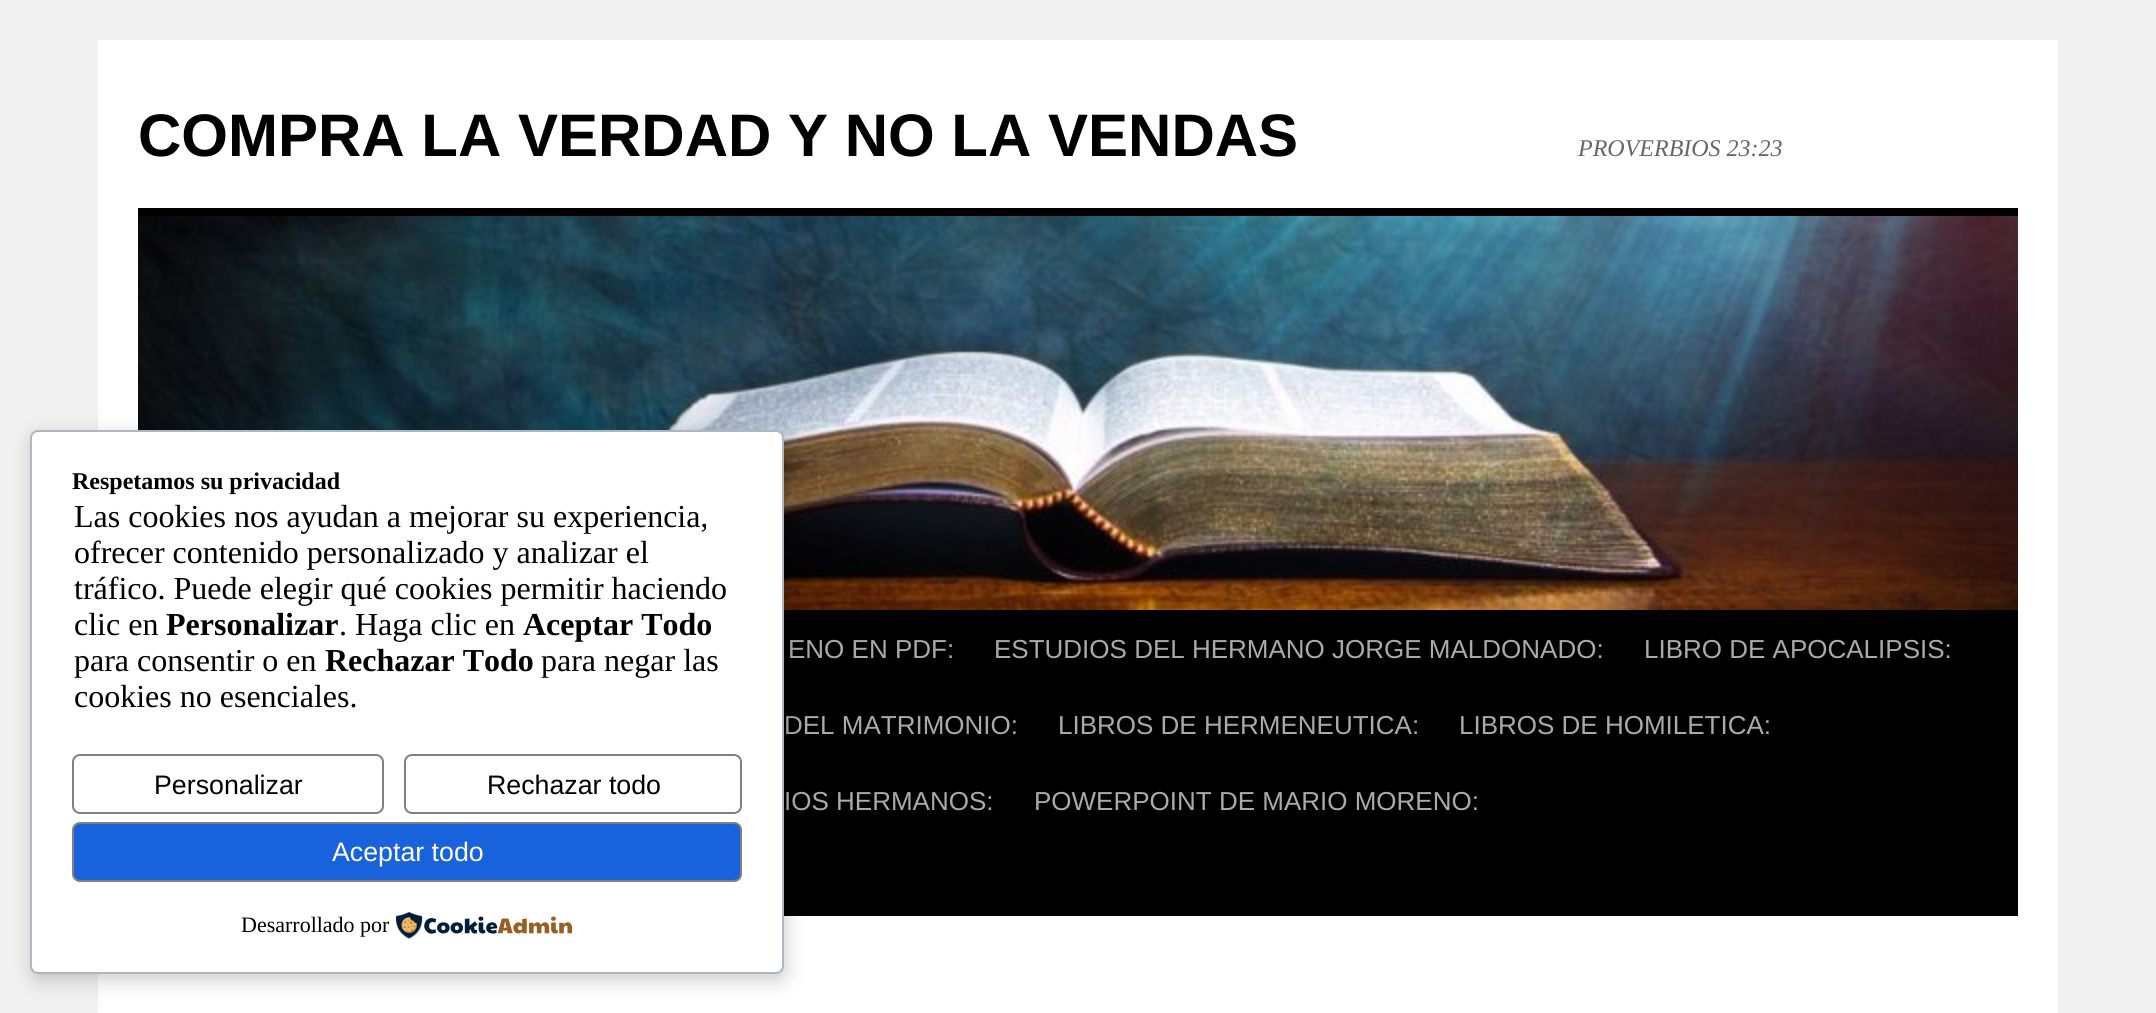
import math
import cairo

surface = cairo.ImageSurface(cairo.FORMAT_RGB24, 2156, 1013)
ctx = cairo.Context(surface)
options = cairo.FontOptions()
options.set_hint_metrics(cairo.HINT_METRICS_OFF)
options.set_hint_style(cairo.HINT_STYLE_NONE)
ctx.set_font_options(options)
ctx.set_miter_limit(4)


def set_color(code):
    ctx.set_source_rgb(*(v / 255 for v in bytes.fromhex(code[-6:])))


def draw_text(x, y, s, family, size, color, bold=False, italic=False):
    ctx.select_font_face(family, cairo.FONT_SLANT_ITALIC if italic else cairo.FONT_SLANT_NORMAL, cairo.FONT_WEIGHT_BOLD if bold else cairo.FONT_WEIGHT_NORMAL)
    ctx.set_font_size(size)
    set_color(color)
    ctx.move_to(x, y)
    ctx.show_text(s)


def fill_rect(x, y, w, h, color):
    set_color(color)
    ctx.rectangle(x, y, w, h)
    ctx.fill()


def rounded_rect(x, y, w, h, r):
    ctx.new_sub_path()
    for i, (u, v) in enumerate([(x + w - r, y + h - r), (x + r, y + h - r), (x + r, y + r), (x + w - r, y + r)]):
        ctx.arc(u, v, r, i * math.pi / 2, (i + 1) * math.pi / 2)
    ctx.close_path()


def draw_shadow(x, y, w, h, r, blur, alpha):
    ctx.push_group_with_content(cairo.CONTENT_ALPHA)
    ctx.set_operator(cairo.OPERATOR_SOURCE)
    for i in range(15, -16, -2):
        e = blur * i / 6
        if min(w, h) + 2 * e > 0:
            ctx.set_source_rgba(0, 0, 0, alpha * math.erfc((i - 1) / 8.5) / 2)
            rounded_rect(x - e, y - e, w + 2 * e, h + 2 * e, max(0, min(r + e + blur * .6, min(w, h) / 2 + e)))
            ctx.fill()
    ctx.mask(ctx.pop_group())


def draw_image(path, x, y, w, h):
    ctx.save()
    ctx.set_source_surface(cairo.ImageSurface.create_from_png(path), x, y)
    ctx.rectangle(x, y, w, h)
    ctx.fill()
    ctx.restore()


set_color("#f1f1f1")
ctx.paint()
fill_rect(98, 40, 1960, 973, "#ffffff")
draw_text(138, 156, "COMPRA LA VERDAD Y NO LA VENDAS", "Liberation Sans", 60, "#000000", bold=True)
draw_text(1578, 156, "PROVERBIOS 23:23", "Liberation Serif", 24, "#666666", italic=True)
fill_rect(138, 208, 1880, 8, "#000000")
fill_rect(784, 610, 1234, 306, "#000000")
draw_image("assets/img1.png", 138, 216, 1880, 394)
draw_text(788, 658, "ENO EN PDF:", "Liberation Sans", 26, "#aaaaaa")
draw_text(994, 658, "ESTUDIOS DEL HERMANO JORGE MALDONADO:", "Liberation Sans", 26, "#aaaaaa")
draw_text(1644, 658, "LIBRO DE APOCALIPSIS:", "Liberation Sans", 26, "#aaaaaa")
draw_text(784, 734, "DEL MATRIMONIO:", "Liberation Sans", 26, "#aaaaaa")
draw_text(1058, 734, "LIBROS DE HERMENEUTICA:", "Liberation Sans", 26, "#aaaaaa")
draw_text(1459, 734, "LIBROS DE HOMILETICA:", "Liberation Sans", 26, "#aaaaaa")
draw_text(784, 810, "IOS HERMANOS:", "Liberation Sans", 26, "#aaaaaa")
draw_text(1034, 810, "POWERPOINT DE MARIO MORENO:", "Liberation Sans", 26, "#aaaaaa")
set_color("#000000")
draw_shadow(32, 436, 754, 544, 8, 10, 0.2)
set_color("#ffffff")
rounded_rect(31, 431, 752, 542, 7)
ctx.fill_preserve()
set_color("#abb8c3")
ctx.stroke()
draw_text(72, 489, "Respetamos su privacidad", "Liberation Serif", 24, "#000000", bold=True)
draw_text(74, 527, "Las cookies nos ayudan a mejorar su experiencia,", "Liberation Serif", 32, "#000000")
draw_text(74, 563, "ofrecer contenido personalizado y analizar el", "Liberation Serif", 32, "#000000")
draw_text(74, 599, "tráfico. Puede elegir qué cookies permitir haciendo", "Liberation Serif", 32, "#000000")
draw_text(74, 635, "clic en", "Liberation Serif", 32, "#000000")
draw_text(166, 635, "Personalizar", "Liberation Serif", 32, "#000000", bold=True)
draw_text(339, 635, ". Haga clic en", "Liberation Serif", 32, "#000000")
draw_text(523, 635, "Aceptar Todo", "Liberation Serif", 32, "#000000", bold=True)
draw_text(74, 671, "para consentir o en", "Liberation Serif", 32, "#000000")
draw_text(325, 671, "Rechazar Todo", "Liberation Serif", 32, "#000000", bold=True)
draw_text(541, 671, "para negar las", "Liberation Serif", 32, "#000000")
draw_text(74, 707, "cookies no esenciales.", "Liberation Serif", 32, "#000000")
rounded_rect(73, 755, 310, 58, 7)
set_color("#808080")
ctx.stroke()
draw_text(154, 794, "Personalizar", "Liberation Sans", 26.75, "#000000")
rounded_rect(405, 755, 336, 58, 7)
set_color("#808080")
ctx.stroke()
draw_text(487, 794, "Rechazar todo", "Liberation Sans", 26.75, "#000000")
set_color("#1863dc")
rounded_rect(73, 823, 668, 58, 7)
ctx.fill_preserve()
set_color("#808080")
ctx.stroke()
draw_text(332, 861, "Aceptar todo", "Liberation Sans", 26.75, "#ffffff")
draw_text(241, 932, "Desarrollado por", "Liberation Serif", 22, "#000000")
draw_image("assets/img2.png", 396, 912, 177, 27)
surface.write_to_png("output.png")
